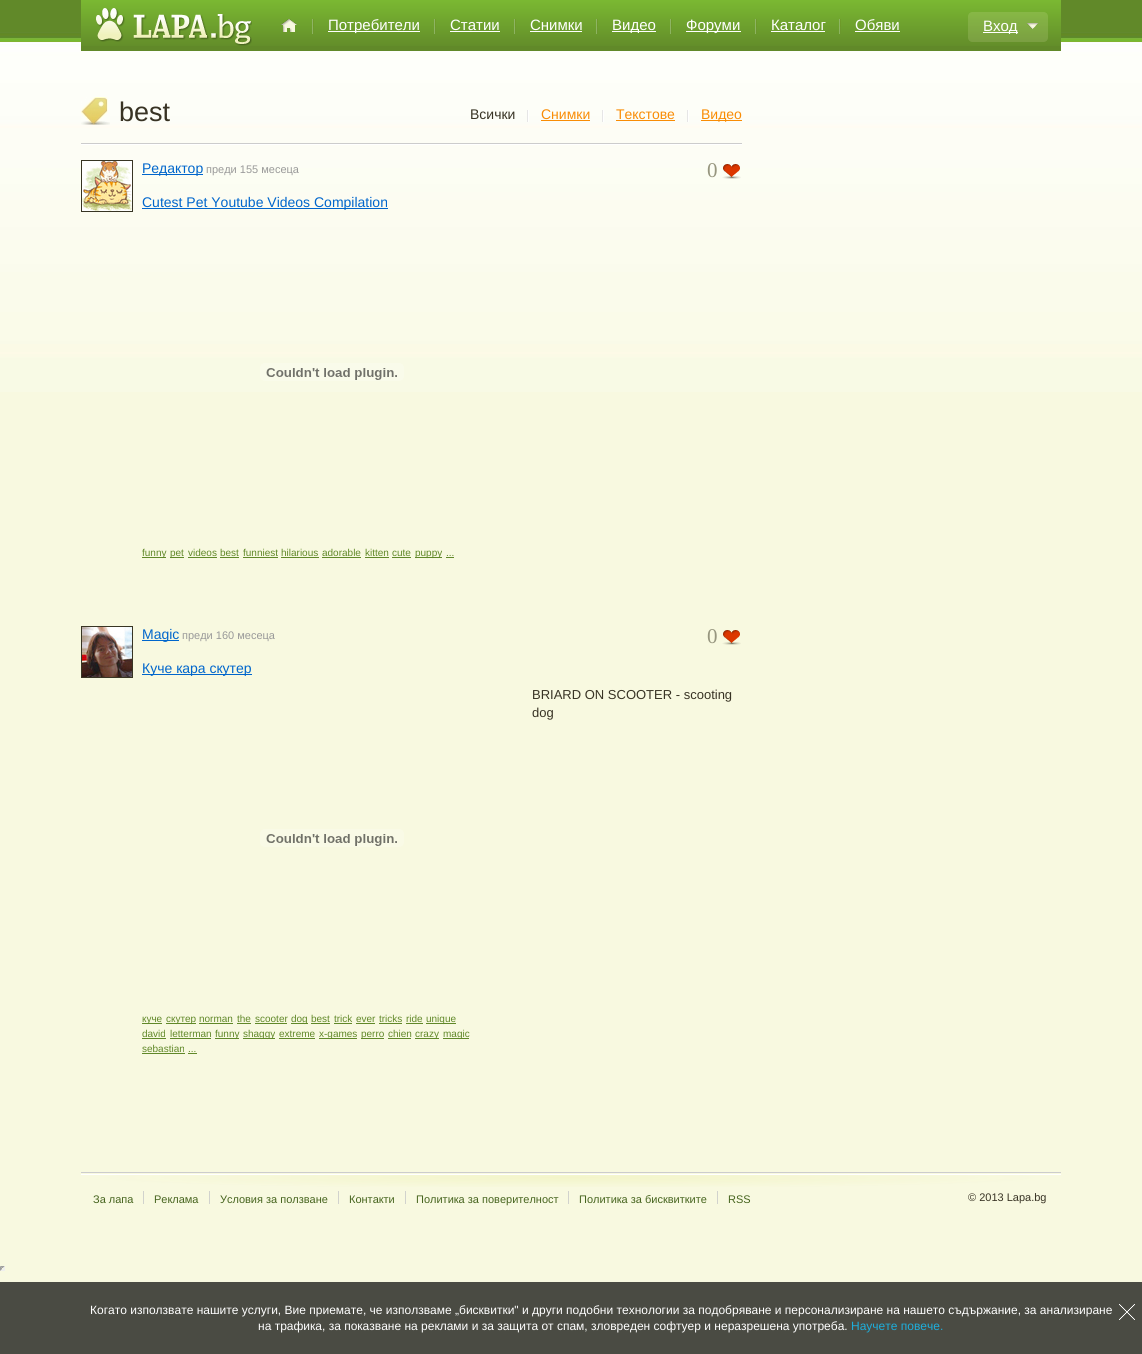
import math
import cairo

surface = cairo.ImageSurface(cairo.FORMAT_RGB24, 1142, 1354)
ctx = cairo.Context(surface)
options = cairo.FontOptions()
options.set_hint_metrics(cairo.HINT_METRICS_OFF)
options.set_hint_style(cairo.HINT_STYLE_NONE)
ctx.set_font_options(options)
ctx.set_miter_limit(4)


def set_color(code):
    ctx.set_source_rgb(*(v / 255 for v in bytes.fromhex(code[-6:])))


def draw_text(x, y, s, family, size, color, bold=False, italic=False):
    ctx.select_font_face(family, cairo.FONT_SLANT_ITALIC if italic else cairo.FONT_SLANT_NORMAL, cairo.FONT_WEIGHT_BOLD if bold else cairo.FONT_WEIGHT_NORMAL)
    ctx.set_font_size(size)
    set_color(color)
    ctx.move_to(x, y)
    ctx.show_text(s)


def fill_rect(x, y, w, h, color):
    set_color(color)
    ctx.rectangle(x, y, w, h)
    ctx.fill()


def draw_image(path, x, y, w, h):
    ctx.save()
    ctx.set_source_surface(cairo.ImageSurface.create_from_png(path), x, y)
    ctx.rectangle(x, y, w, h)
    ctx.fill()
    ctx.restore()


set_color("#f8f9e0")
ctx.paint()
draw_image("assets/img1.png", 0, 0, 1142, 392)
fill_rect(81, 46, 980, 5, "#618929")
draw_image("assets/img2.png", 81, 0, 980, 46)
draw_image("assets/img3.png", 96, 8, 156, 38)
draw_image("assets/img4.png", 281, 19, 16, 13)
draw_image("assets/img5.png", 312, 19, 2, 15)
fill_rect(328, 31, 92, 1, "#ffffff")
draw_text(328, 30, "Потребители", "Liberation Sans", 15, "#ffffff")
draw_image("assets/img5.png", 434, 19, 2, 15)
draw_text(450, 30, "Статии", "Liberation Sans", 15, "#ffffff")
fill_rect(450, 31, 50, 1, "#ffffff")
draw_image("assets/img5.png", 514, 19, 2, 15)
draw_text(530, 30, "Снимки", "Liberation Sans", 15, "#ffffff")
fill_rect(530, 31, 52, 1, "#ffffff")
draw_image("assets/img5.png", 596, 19, 2, 15)
fill_rect(612, 31, 44, 1, "#ffffff")
draw_text(612, 30, "Видео", "Liberation Sans", 15, "#ffffff")
draw_image("assets/img5.png", 670, 19, 2, 15)
fill_rect(686, 31, 55, 1, "#ffffff")
draw_text(686, 30, "Форуми", "Liberation Sans", 15, "#ffffff")
draw_image("assets/img5.png", 755, 19, 2, 15)
draw_text(771, 30, "Каталог", "Liberation Sans", 15, "#ffffff")
fill_rect(771, 31, 54, 1, "#ffffff")
draw_image("assets/img5.png", 839, 19, 2, 15)
draw_text(855, 30, "Обяви", "Liberation Sans", 15, "#ffffff")
fill_rect(855, 31, 45, 1, "#ffffff")
draw_image("assets/img6.png", 968, 12, 5, 30)
ctx.set_source_rgba(0.949, 0.949, 0.765, 0.15)
ctx.rectangle(973, 12, 70, 30)
ctx.fill()
draw_image("assets/img7.png", 1027, 23, 11, 6)
fill_rect(983, 32, 35, 1, "#ffffff")
draw_text(983, 31, "Вход", "Liberation Sans", 15, "#ffffff")
draw_image("assets/img8.png", 1043, 12, 5, 30)
draw_image("assets/img9.png", 81, 97, 29, 28)
draw_text(119, 121, "best", "Liberation Sans", 27, "#383324")
draw_text(470, 119, "Всички", "Liberation Sans", 14, "#383324")
draw_image("assets/img10.png", 527, 110, 2, 12)
draw_text(541, 119, "Снимки", "Liberation Sans", 14, "#f98c05")
fill_rect(541, 120, 49, 1, "#f98c05")
draw_image("assets/img10.png", 602, 110, 2, 12)
draw_text(616, 119, "Текстове", "Liberation Sans", 14, "#f98c05")
fill_rect(616, 120, 59, 1, "#f98c05")
draw_image("assets/img10.png", 687, 110, 2, 12)
fill_rect(701, 120, 41, 1, "#f98c05")
draw_text(701, 119, "Видео", "Liberation Sans", 14, "#f98c05")
draw_image("assets/img11.png", 81, 143, 661, 2)
ctx.rectangle(81.5, 160.5, 51, 51)
set_color("#383524")
ctx.set_line_width(1)
ctx.stroke()
draw_image("assets/img12.png", 82, 161, 50, 50)
fill_rect(142, 174, 61, 1, "#0066cc")
draw_text(142, 173, "Редактор", "Liberation Sans", 14, "#0066cc")
draw_text(206, 173, "преди 155 месеца", "Liberation Sans", 11, "#999999")
draw_text(707, 177, "0", "Liberation Serif", 21, "#97967f")
draw_image("assets/img13.png", 722, 164, 19, 15)
fill_rect(142, 208, 246, 1, "#0066cc")
draw_text(142, 207, "Cutest Pet Youtube Videos Compilation", "Liberation Sans", 14, "#0066cc")
draw_image("assets/img14.png", 260, 363, 144, 18)
fill_rect(142, 557, 24, 1, "#608828")
draw_text(142, 556, "funny", "Liberation Sans", 10, "#608828")
fill_rect(170, 557, 14, 1, "#608828")
draw_text(170, 556, "pet", "Liberation Sans", 10, "#608828")
draw_text(188, 556, "videos", "Liberation Sans", 10, "#608828")
fill_rect(188, 557, 29, 1, "#608828")
draw_text(220, 556, "best", "Liberation Sans", 10, "#608828")
fill_rect(220, 557, 19, 1, "#608828")
draw_text(243, 556, "funniest", "Liberation Sans", 10, "#608828")
fill_rect(243, 557, 35, 1, "#608828")
draw_text(281, 556, "hilarious", "Liberation Sans", 10, "#608828")
fill_rect(281, 557, 38, 1, "#608828")
draw_text(322, 556, "adorable", "Liberation Sans", 10, "#608828")
fill_rect(322, 557, 39, 1, "#608828")
draw_text(365, 556, "kitten", "Liberation Sans", 10, "#608828")
fill_rect(365, 557, 24, 1, "#608828")
draw_text(392, 556, "cute", "Liberation Sans", 10, "#608828")
fill_rect(392, 557, 19, 1, "#608828")
fill_rect(415, 557, 27, 1, "#608828")
draw_text(415, 556, "puppy", "Liberation Sans", 10, "#608828")
draw_text(446, 556, "...", "Liberation Sans", 10, "#608828")
fill_rect(446, 557, 8, 1, "#608828")
ctx.rectangle(81.5, 626.5, 51, 51)
set_color("#383524")
ctx.stroke()
draw_image("assets/img15.png", 82, 627, 50, 50)
fill_rect(142, 640, 37, 1, "#0066cc")
draw_text(142, 639, "Magic", "Liberation Sans", 14, "#0066cc")
draw_text(182, 639, "преди 160 месеца", "Liberation Sans", 11, "#999999")
draw_text(707, 643, "0", "Liberation Serif", 21, "#97967f")
draw_image("assets/img16.png", 722, 630, 19, 15)
fill_rect(142, 674, 110, 1, "#0066cc")
draw_text(142, 673, "Куче кара скутер", "Liberation Sans", 14, "#0066cc")
draw_text(532, 699, "BRIARD ON SCOOTER - scooting", "Liberation Sans", 13, "#383324")
draw_text(532, 717, "dog", "Liberation Sans", 13, "#383324")
draw_image("assets/img17.png", 260, 829, 144, 18)
fill_rect(142, 1023, 20, 1, "#608828")
draw_text(142, 1022, "куче", "Liberation Sans", 10, "#608828")
fill_rect(166, 1023, 30, 1, "#608828")
draw_text(166, 1022, "скутер", "Liberation Sans", 10, "#608828")
draw_text(199, 1022, "norman", "Liberation Sans", 10, "#608828")
fill_rect(199, 1023, 34, 1, "#608828")
draw_text(237, 1022, "the", "Liberation Sans", 10, "#608828")
fill_rect(237, 1023, 14, 1, "#608828")
draw_text(255, 1022, "scooter", "Liberation Sans", 10, "#608828")
fill_rect(255, 1023, 32, 1, "#608828")
fill_rect(291, 1023, 17, 1, "#608828")
draw_text(291, 1022, "dog", "Liberation Sans", 10, "#608828")
draw_text(311, 1022, "best", "Liberation Sans", 10, "#608828")
fill_rect(311, 1023, 19, 1, "#608828")
draw_text(334, 1022, "trick", "Liberation Sans", 10, "#608828")
fill_rect(334, 1023, 18, 1, "#608828")
draw_text(356, 1022, "ever", "Liberation Sans", 10, "#608828")
fill_rect(356, 1023, 19, 1, "#608828")
draw_text(379, 1022, "tricks", "Liberation Sans", 10, "#608828")
fill_rect(379, 1023, 23, 1, "#608828")
draw_text(406, 1022, "ride", "Liberation Sans", 10, "#608828")
fill_rect(406, 1023, 17, 1, "#608828")
fill_rect(426, 1023, 30, 1, "#608828")
draw_text(426, 1022, "unique", "Liberation Sans", 10, "#608828")
draw_text(142, 1037, "david", "Liberation Sans", 10, "#608828")
fill_rect(142, 1038, 24, 1, "#608828")
draw_text(170, 1037, "letterman", "Liberation Sans", 10, "#608828")
fill_rect(170, 1038, 41, 1, "#608828")
fill_rect(215, 1038, 24, 1, "#608828")
draw_text(215, 1037, "funny", "Liberation Sans", 10, "#608828")
fill_rect(243, 1038, 32, 1, "#608828")
draw_text(243, 1037, "shaggy", "Liberation Sans", 10, "#608828")
draw_text(279, 1037, "extreme", "Liberation Sans", 10, "#608828")
fill_rect(279, 1038, 36, 1, "#608828")
fill_rect(319, 1038, 38, 1, "#608828")
draw_text(319, 1037, "x-games", "Liberation Sans", 10, "#608828")
fill_rect(361, 1038, 23, 1, "#608828")
draw_text(361, 1037, "perro", "Liberation Sans", 10, "#608828")
draw_text(388, 1037, "chien", "Liberation Sans", 10, "#608828")
fill_rect(388, 1038, 23, 1, "#608828")
fill_rect(415, 1038, 24, 1, "#608828")
draw_text(415, 1037, "crazy", "Liberation Sans", 10, "#608828")
fill_rect(443, 1038, 26, 1, "#608828")
draw_text(443, 1037, "magic", "Liberation Sans", 10, "#608828")
draw_text(142, 1052, "sebastian", "Liberation Sans", 10, "#608828")
fill_rect(142, 1053, 43, 1, "#608828")
draw_text(188, 1052, "...", "Liberation Sans", 10, "#608828")
fill_rect(188, 1053, 9, 1, "#608828")
draw_image("assets/img18.png", 81, 1172, 980, 15)
draw_text(93, 1203, "За лапа", "Liberation Sans", 11, "#46641e")
fill_rect(143, 1191, 1, 13, "#d1d2cd")
draw_text(154, 1203, "Реклама", "Liberation Sans", 11, "#46641e")
fill_rect(209, 1191, 1, 13, "#d1d2cd")
draw_text(220, 1203, "Условия за ползване", "Liberation Sans", 11, "#46641e")
fill_rect(338, 1191, 1, 13, "#d1d2cd")
draw_text(349, 1203, "Контакти", "Liberation Sans", 11, "#46641e")
fill_rect(405, 1191, 1, 13, "#d1d2cd")
draw_text(416, 1203, "Политика за поверителност", "Liberation Sans", 11, "#46641e")
fill_rect(568, 1191, 1, 13, "#d1d2cd")
draw_text(579, 1203, "Политика за бисквитките", "Liberation Sans", 11, "#46641e")
fill_rect(717, 1191, 1, 13, "#d1d2cd")
draw_text(728, 1203, "RSS", "Liberation Sans", 11, "#46641e")
draw_text(968, 1201, "© 2013 Lapa.bg", "Liberation Sans", 11, "#383324")
set_color("#9f9f9f")
ctx.new_path()
ctx.move_to(0, 1266)
ctx.line_to(5, 1266)
ctx.line_to(3, 1268)
ctx.line_to(2, 1268)
ctx.close_path()
ctx.fill()
set_color("#eeeeee")
ctx.new_path()
ctx.move_to(5, 1266)
ctx.line_to(5, 1271)
ctx.line_to(3, 1269)
ctx.line_to(3, 1268)
ctx.close_path()
ctx.fill()
ctx.new_path()
ctx.move_to(5, 1271)
ctx.line_to(0, 1271)
ctx.line_to(2, 1269)
ctx.line_to(3, 1269)
ctx.close_path()
ctx.fill()
set_color("#9f9f9f")
ctx.new_path()
ctx.move_to(0, 1271)
ctx.line_to(0, 1266)
ctx.line_to(2, 1268)
ctx.line_to(2, 1269)
ctx.close_path()
ctx.fill()
fill_rect(0, 1282, 1142, 72, "#4a4b43")
draw_text(90, 1314, "Когато използвате нашите услуги, Вие приемате, че използваме „бисквитки\" и други подобни технологии за подобряване и персонализиране на нашето съдържание, за анализиране", "Liberation Sans", 12, "#ffffff")
draw_image("assets/img19.png", 1119, 1304, 16, 16)
draw_text(258, 1330, "на трафика, за показване на реклами и за защита от спам, зловреден софтуер и неразрешена употреба.", "Liberation Sans", 12, "#ffffff")
draw_text(851, 1330, "Научете повече.", "Liberation Sans", 12, "#1eaedb")
surface.write_to_png("output.png")
